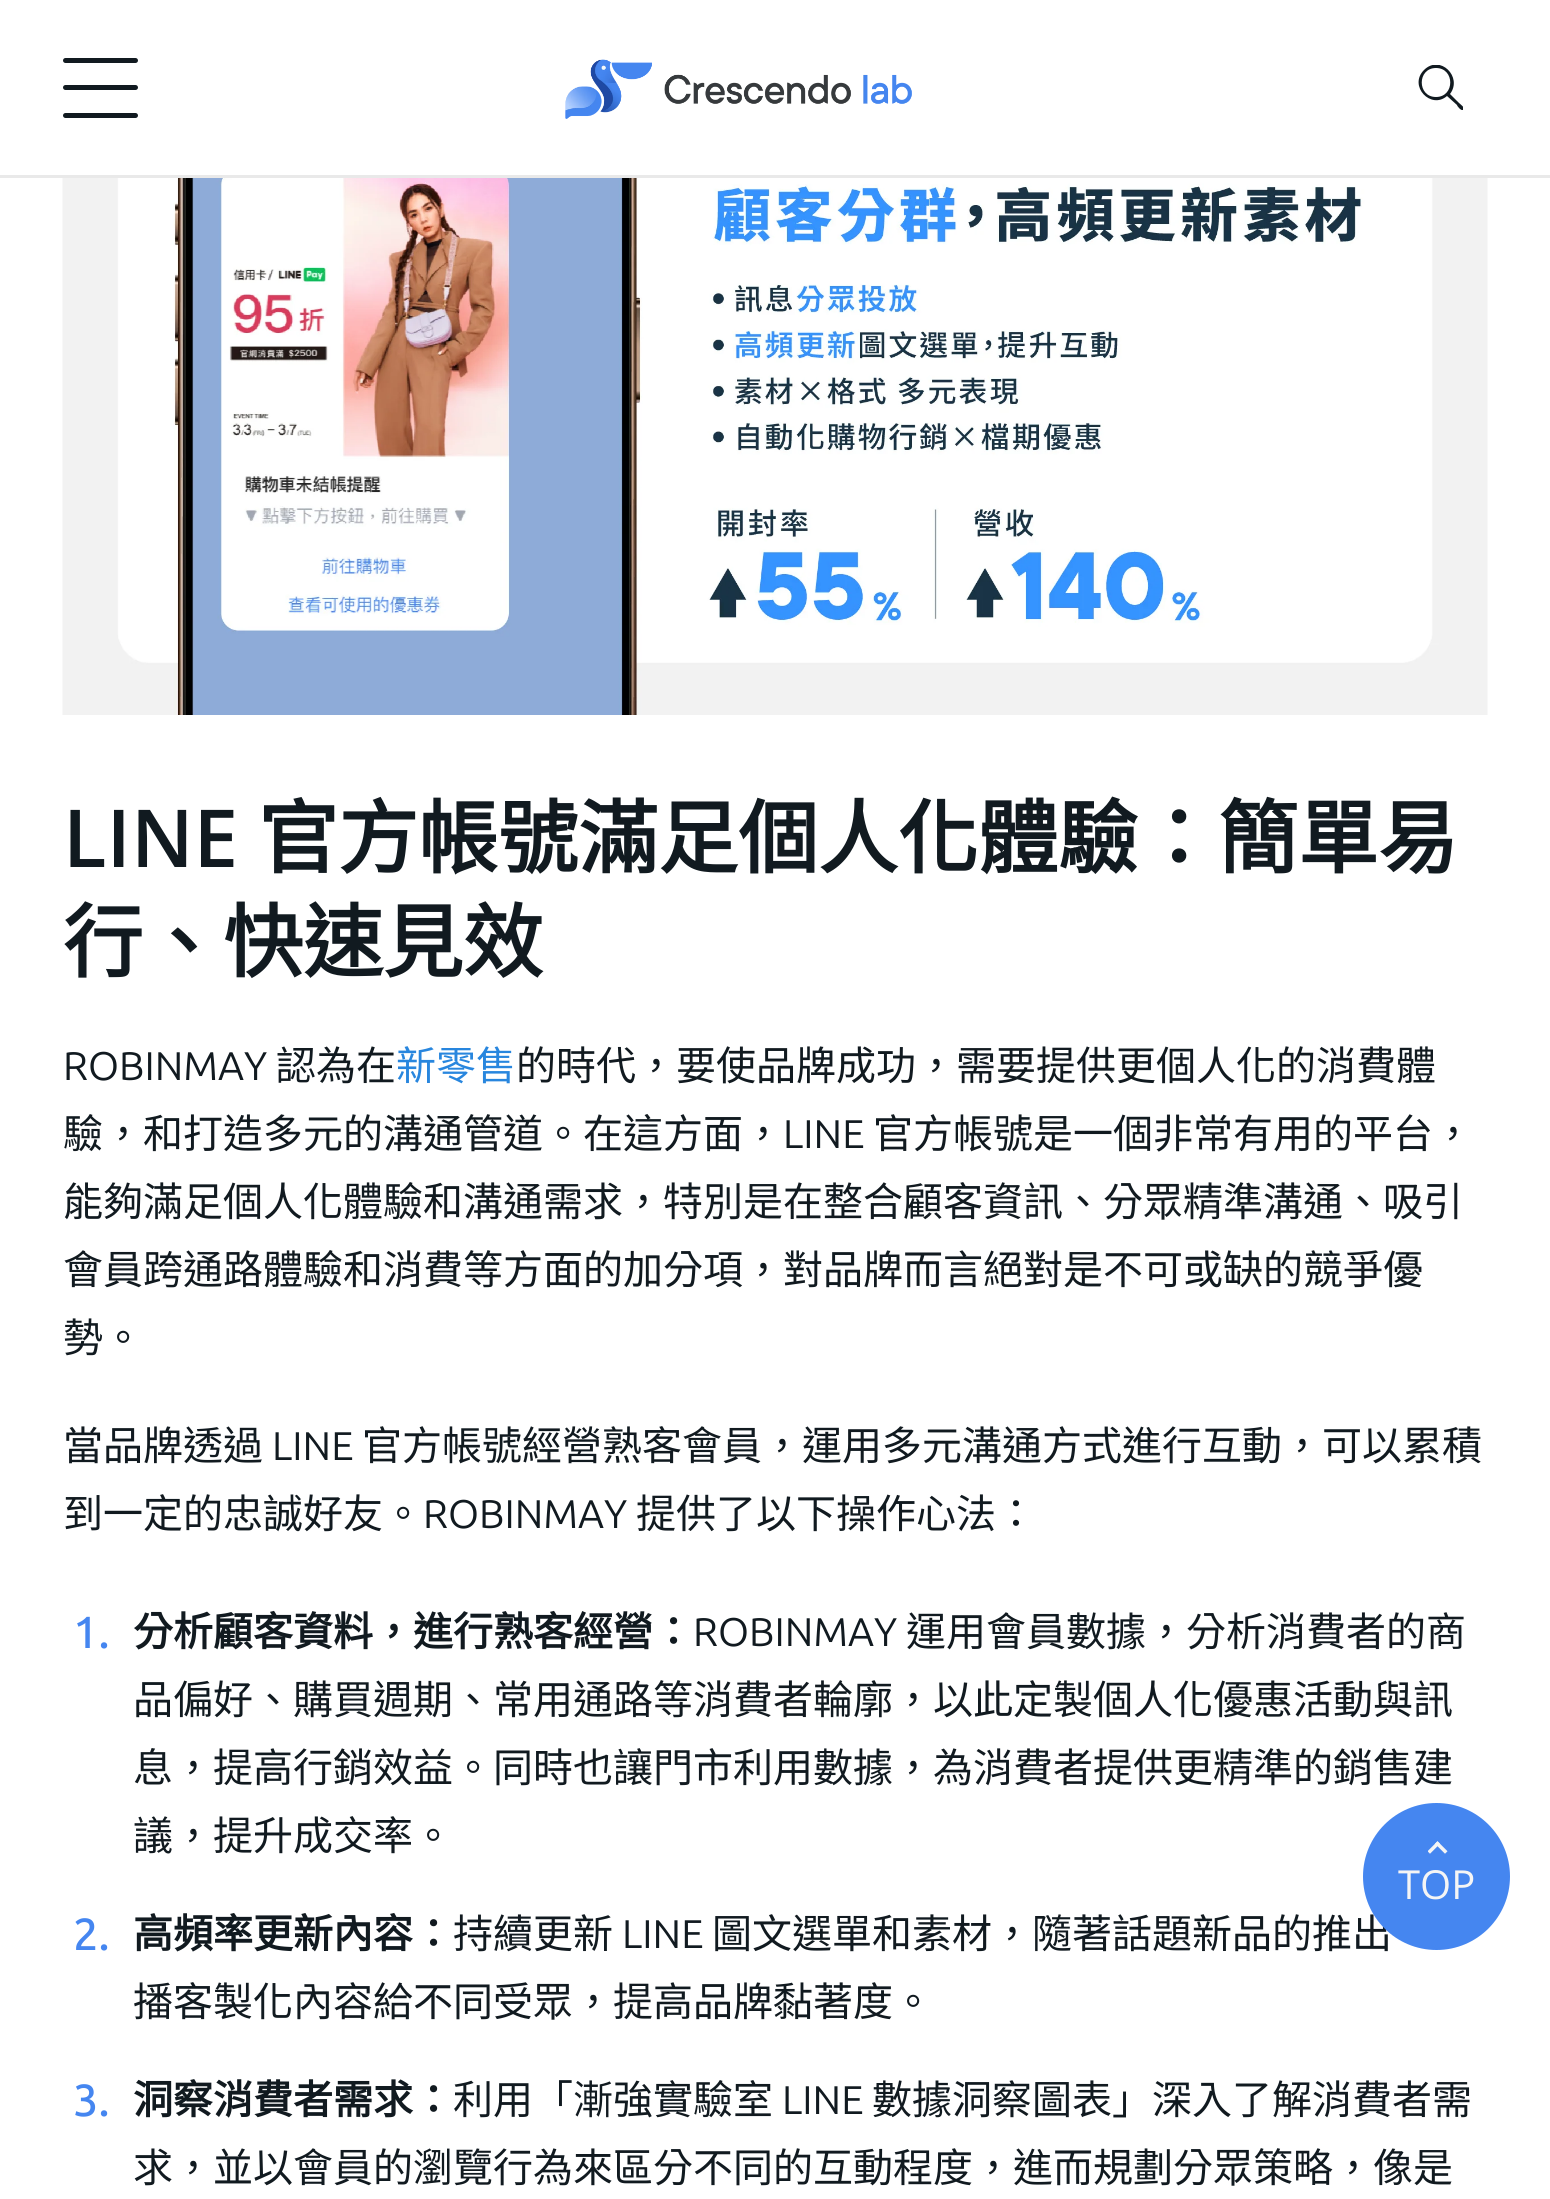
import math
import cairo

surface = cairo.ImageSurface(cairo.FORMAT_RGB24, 1550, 2199)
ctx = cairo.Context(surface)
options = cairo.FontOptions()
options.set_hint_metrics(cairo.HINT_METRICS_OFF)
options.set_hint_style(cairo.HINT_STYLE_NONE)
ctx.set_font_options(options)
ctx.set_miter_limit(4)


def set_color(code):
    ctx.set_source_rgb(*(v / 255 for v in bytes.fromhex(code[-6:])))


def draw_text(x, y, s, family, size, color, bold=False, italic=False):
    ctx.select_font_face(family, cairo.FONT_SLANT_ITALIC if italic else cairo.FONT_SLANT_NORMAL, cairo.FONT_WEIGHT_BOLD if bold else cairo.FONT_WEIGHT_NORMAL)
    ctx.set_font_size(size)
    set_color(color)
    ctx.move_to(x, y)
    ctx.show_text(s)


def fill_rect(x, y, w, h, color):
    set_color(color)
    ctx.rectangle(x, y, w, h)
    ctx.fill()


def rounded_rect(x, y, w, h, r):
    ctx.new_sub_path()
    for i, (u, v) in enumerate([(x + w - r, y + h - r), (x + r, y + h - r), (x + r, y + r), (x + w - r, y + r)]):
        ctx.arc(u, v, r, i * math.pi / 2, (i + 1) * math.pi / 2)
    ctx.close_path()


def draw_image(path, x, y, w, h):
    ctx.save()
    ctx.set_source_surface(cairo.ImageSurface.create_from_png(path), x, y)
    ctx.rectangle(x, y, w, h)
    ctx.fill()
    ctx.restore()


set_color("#ffffff")
ctx.paint()
fill_rect(0, 175, 1550, 3, "#e9e9e9")
set_color("#111a20")
rounded_rect(63, 58, 75, 5, 2.5)
ctx.fill()
rounded_rect(63, 85, 75, 5, 2.5)
ctx.fill()
rounded_rect(63, 113, 75, 5, 2.5)
ctx.fill()
draw_image("assets/img1.png", 565, 59, 347, 60)
ctx.save()
ctx.rectangle(1418, 65, 45, 45)
ctx.clip()
ctx.new_path()
ctx.move_to(1450, 94)
ctx.curve_to(1463, 77, 1440, 54, 1424, 70)
ctx.curve_to(1408, 86, 1431, 110, 1447, 96)
ctx.line_to(1457, 105)
ctx.curve_to(1457, 106, 1461, 111, 1463, 110)
ctx.curve_to(1466, 108, 1460, 104, 1459, 103)
ctx.close_path()
ctx.move_to(1436, 97)
ctx.curve_to(1417, 97, 1417, 68, 1436, 68)
ctx.curve_to(1455, 68, 1455, 97, 1436, 97)
ctx.close_path()
ctx.fill()
ctx.restore()
draw_image("assets/img2.png", 62, 178, 1426, 537)
draw_text(63, 867, "LINE", "Open Sans SemiBold", 80, "#111a20")
draw_text(258, 867, "官方帳號滿足個人化體驗：簡單易", "Noto Sans CJK TC", 80, "#111a20", bold=True)
draw_text(63, 971, "行、快速見效", "Noto Sans CJK TC", 80, "#111a20", bold=True)
draw_text(63, 1080, "ROBINMAY", "Ubuntu", 40, "#111a20")
draw_text(276, 1080, "認為在", "Noto Sans CJK TC", 40, "#111a20")
draw_text(396, 1080, "新零售", "Noto Sans CJK TC", 40, "#2886de")
draw_text(516, 1080, "的時代，要使品牌成功，需要提供更個人化的消費體", "Noto Sans CJK TC", 40, "#111a20")
draw_text(63, 1148, "驗，和打造多元的溝通管道。在這方面，", "Noto Sans CJK TC", 40, "#111a20")
draw_text(783, 1148, "LINE", "Ubuntu", 40, "#111a20")
draw_text(873, 1148, "官方帳號是一個非常有用的平台，", "Noto Sans CJK TC", 40, "#111a20")
draw_text(63, 1216, "能夠滿足個人化體驗和溝通需求，特別是在整合顧客資訊、分眾精準溝通、吸引", "Noto Sans CJK TC", 40, "#111a20")
draw_text(63, 1284, "會員跨通路體驗和消費等方面的加分項，對品牌而言絕對是不可或缺的競爭優", "Noto Sans CJK TC", 40, "#111a20")
draw_text(63, 1352, "勢。", "Noto Sans CJK TC", 40, "#111a20")
draw_text(63, 1460, "當品牌透過", "Noto Sans CJK TC", 40, "#111a20")
draw_text(272, 1460, "LINE", "Ubuntu", 40, "#111a20")
draw_text(362, 1460, "官方帳號經營熟客會員，運用多元溝通方式進行互動，可以累積", "Noto Sans CJK TC", 40, "#111a20")
draw_text(63, 1528, "到一定的忠誠好友。", "Noto Sans CJK TC", 40, "#111a20")
draw_text(423, 1528, "ROBINMAY", "Ubuntu", 40, "#111a20")
draw_text(636, 1528, "提供了以下操作心法：", "Noto Sans CJK TC", 40, "#111a20")
draw_text(73, 1648, "1.", "Ubuntu Medium", 45, "#4586f0")
draw_text(133, 1646, "分析顧客資料，進行熟客經營：", "Noto Sans CJK TC", 40, "#111a20", bold=True)
draw_text(693, 1646, "ROBINMAY", "Ubuntu", 40, "#111a20")
draw_text(906, 1646, "運用會員數據，分析消費者的商", "Noto Sans CJK TC", 40, "#111a20")
draw_text(133, 1714, "品偏好、購買週期、常用通路等消費者輪廓，以此定製個人化優惠活動與訊", "Noto Sans CJK TC", 40, "#111a20")
draw_text(133, 1782, "息，提高行銷效益。同時也讓門市利用數據，為消費者提供更精準的銷售建", "Noto Sans CJK TC", 40, "#111a20")
draw_text(133, 1850, "議，提升成交率。", "Noto Sans CJK TC", 40, "#111a20")
draw_text(73, 1950, "2.", "Ubuntu Medium", 45, "#4586f0")
draw_text(133, 1948, "高頻率更新內容：", "Noto Sans CJK TC", 40, "#111a20", bold=True)
draw_text(453, 1948, "持續更新", "Noto Sans CJK TC", 40, "#111a20")
draw_text(622, 1948, "LINE", "Ubuntu", 40, "#111a20")
draw_text(712, 1948, "圖文選單和素材，隨著話題新品的推出", "Noto Sans CJK TC", 40, "#111a20")
draw_text(133, 2016, "播客製化內容給不同受眾，提高品牌黏著度。", "Noto Sans CJK TC", 40, "#111a20")
draw_text(73, 2116, "3.", "Ubuntu Medium", 45, "#4586f0")
draw_text(133, 2114, "洞察消費者需求：", "Noto Sans CJK TC", 40, "#111a20", bold=True)
draw_text(453, 2114, "利用「漸強實驗室", "Noto Sans CJK TC", 40, "#111a20")
draw_text(782, 2114, "LINE", "Ubuntu", 40, "#111a20")
draw_text(872, 2114, "數據洞察圖表」深入了解消費者需", "Noto Sans CJK TC", 40, "#111a20")
draw_text(133, 2182, "求，並以會員的瀏覽行為來區分不同的互動程度，進而規劃分眾策略，像是", "Noto Sans CJK TC", 40, "#111a20")
set_color("#4586f0")
ctx.new_path()
ctx.arc(1436.5, 1876.5, 73.5, 0, 2 * math.pi)
ctx.fill()
draw_image("assets/img3.png", 1428, 1841, 20, 13)
draw_text(1398, 1899, "TOP", "Open Sans", 40, "#f5f5f5")
surface.write_to_png("output.png")
